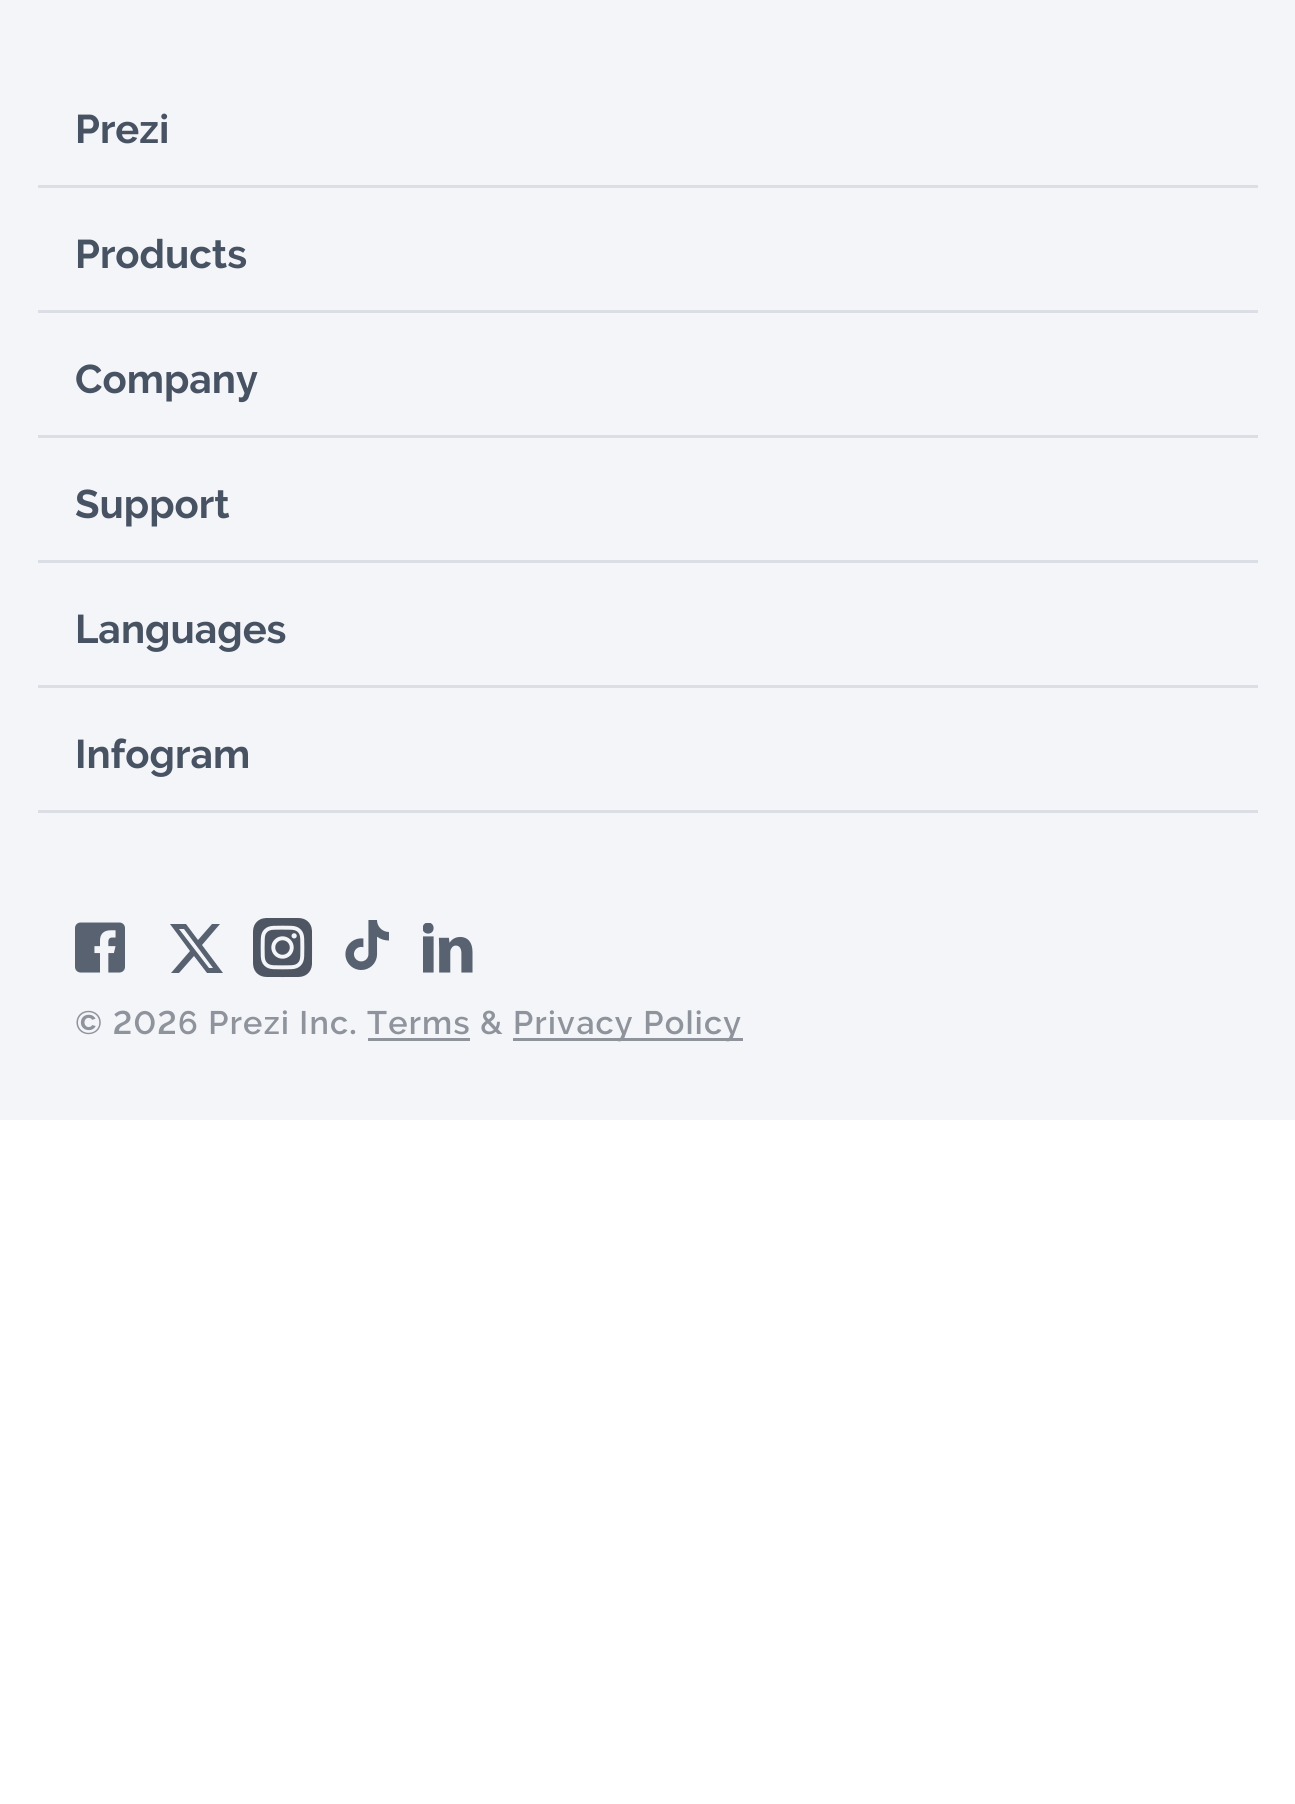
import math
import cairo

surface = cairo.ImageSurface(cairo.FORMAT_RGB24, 1295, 1804)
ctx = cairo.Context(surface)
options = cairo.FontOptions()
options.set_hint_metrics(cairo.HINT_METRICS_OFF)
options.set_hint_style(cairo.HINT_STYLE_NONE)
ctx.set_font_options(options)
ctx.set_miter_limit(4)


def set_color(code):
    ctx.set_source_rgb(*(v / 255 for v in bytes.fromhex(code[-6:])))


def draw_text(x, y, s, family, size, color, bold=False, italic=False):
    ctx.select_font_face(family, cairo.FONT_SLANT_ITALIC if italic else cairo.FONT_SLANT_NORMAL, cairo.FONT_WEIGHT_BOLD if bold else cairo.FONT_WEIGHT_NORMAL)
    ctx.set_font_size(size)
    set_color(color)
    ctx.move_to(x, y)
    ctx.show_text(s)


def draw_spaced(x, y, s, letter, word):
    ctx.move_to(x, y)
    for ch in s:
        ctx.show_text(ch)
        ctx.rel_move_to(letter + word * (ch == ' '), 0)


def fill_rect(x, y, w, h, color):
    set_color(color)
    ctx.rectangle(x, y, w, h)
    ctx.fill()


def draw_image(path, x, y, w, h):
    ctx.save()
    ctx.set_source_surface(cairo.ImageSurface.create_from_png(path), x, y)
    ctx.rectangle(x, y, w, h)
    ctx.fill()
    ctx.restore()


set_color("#ffffff")
ctx.paint()
fill_rect(0, 0, 1295, 1120, "#f3f5f9")
fill_rect(38, 185, 1220, 3, "#dbdfe5")
draw_text(75, 143, "Prezi", "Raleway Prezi", 40, "#475262", bold=True)
fill_rect(38, 310, 1220, 3, "#dbdfe5")
draw_text(75, 268, "Products", "Raleway Prezi", 40, "#475262", bold=True)
fill_rect(38, 435, 1220, 3, "#dbdfe5")
draw_text(75, 393, "Company", "Raleway Prezi", 40, "#475262", bold=True)
fill_rect(38, 560, 1220, 3, "#dbdfe5")
draw_text(75, 518, "Support", "Raleway Prezi", 40, "#475262", bold=True)
fill_rect(38, 685, 1220, 3, "#dbdfe5")
draw_text(75, 643, "Languages", "Raleway Prezi", 40, "#475262", bold=True)
fill_rect(38, 810, 1220, 3, "#dbdfe5")
draw_text(75, 768, "Infogram", "Raleway Prezi", 40, "#475262", bold=True)
draw_image("assets/img1.png", 75, 922, 50, 51)
set_color("#57616f")
ctx.new_path()
ctx.move_to(171, 973)
ctx.line_to(190, 951)
ctx.line_to(170, 924)
ctx.line_to(186, 924)
ctx.line_to(198, 940)
ctx.line_to(212, 924)
ctx.line_to(220, 924)
ctx.line_to(202, 945)
ctx.line_to(223, 973)
ctx.line_to(207, 973)
ctx.line_to(194, 956)
ctx.line_to(179, 973)
ctx.close_path()
ctx.move_to(213, 968)
ctx.line_to(184, 929)
ctx.line_to(179, 929)
ctx.line_to(209, 968)
ctx.close_path()
ctx.fill()
draw_image("assets/img2.png", 253, 918, 60, 60)
draw_image("assets/img3.png", 345, 920, 44, 50)
draw_image("assets/img4.png", 423, 923, 50, 50)
ctx.select_font_face("Raleway Prezi SemiBold")
ctx.set_font_size(32.5)
set_color("#8e939c")
draw_spaced(75, 1034, "© 2026 Prezi Inc. Terms &", 1.25, 0)
fill_rect(513, 1038, 230, 3, "#8e939c")
draw_spaced(513, 1034, "Privacy Policy", 1.25, 0)
fill_rect(368, 1038, 102, 3, "#8e939c")
surface.write_to_png("output.png")
